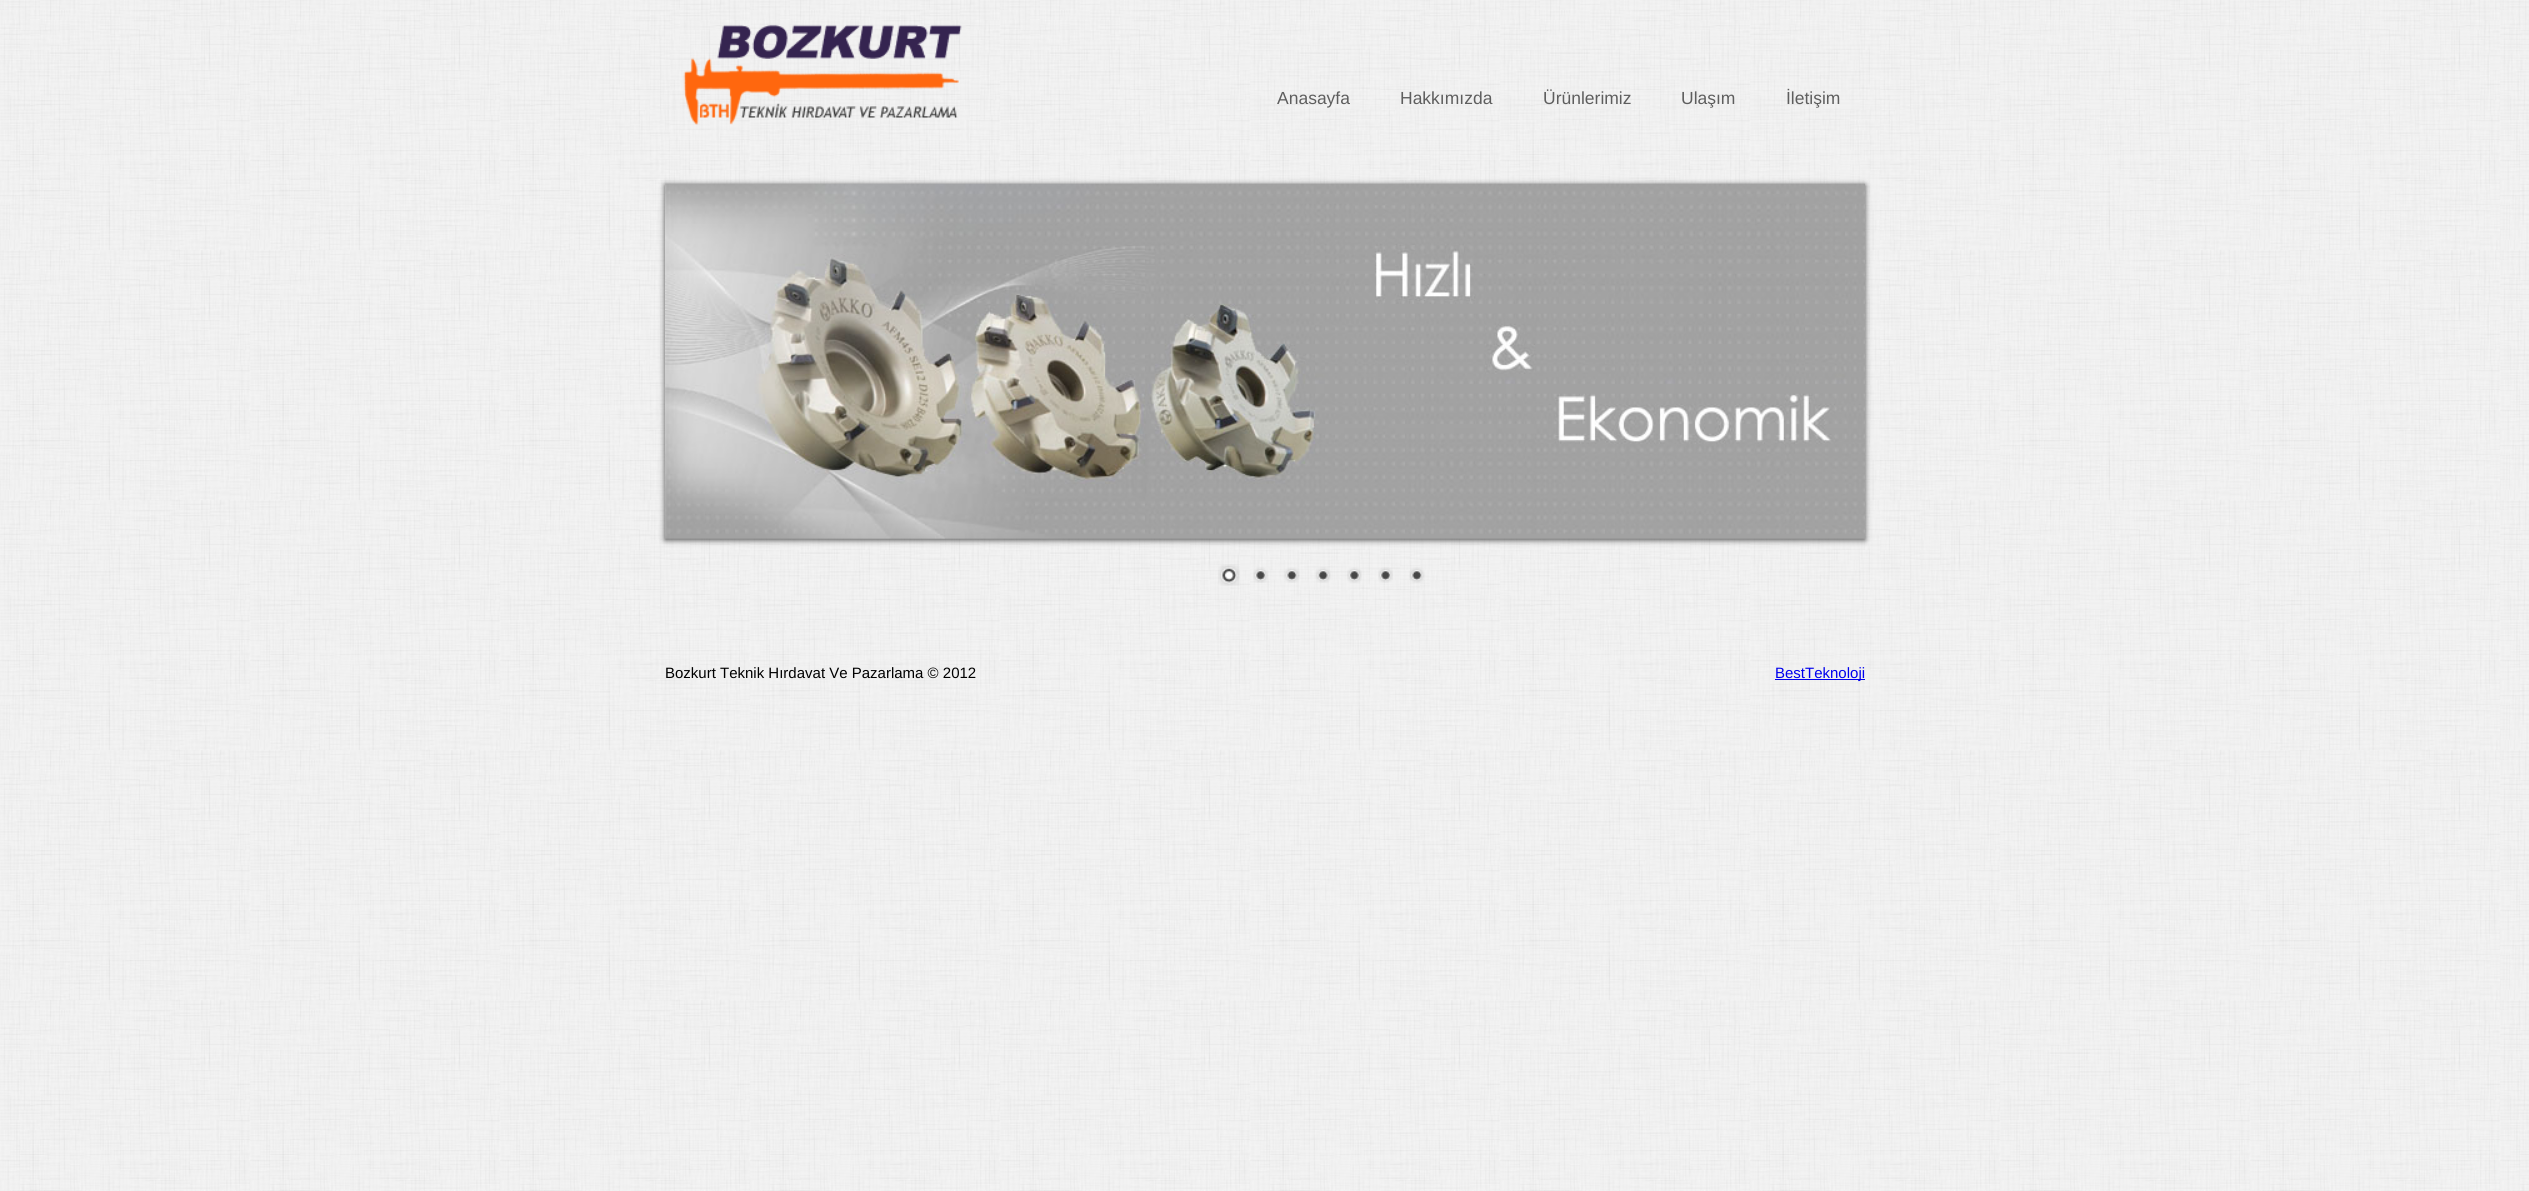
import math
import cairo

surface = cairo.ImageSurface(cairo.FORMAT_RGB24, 2529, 1191)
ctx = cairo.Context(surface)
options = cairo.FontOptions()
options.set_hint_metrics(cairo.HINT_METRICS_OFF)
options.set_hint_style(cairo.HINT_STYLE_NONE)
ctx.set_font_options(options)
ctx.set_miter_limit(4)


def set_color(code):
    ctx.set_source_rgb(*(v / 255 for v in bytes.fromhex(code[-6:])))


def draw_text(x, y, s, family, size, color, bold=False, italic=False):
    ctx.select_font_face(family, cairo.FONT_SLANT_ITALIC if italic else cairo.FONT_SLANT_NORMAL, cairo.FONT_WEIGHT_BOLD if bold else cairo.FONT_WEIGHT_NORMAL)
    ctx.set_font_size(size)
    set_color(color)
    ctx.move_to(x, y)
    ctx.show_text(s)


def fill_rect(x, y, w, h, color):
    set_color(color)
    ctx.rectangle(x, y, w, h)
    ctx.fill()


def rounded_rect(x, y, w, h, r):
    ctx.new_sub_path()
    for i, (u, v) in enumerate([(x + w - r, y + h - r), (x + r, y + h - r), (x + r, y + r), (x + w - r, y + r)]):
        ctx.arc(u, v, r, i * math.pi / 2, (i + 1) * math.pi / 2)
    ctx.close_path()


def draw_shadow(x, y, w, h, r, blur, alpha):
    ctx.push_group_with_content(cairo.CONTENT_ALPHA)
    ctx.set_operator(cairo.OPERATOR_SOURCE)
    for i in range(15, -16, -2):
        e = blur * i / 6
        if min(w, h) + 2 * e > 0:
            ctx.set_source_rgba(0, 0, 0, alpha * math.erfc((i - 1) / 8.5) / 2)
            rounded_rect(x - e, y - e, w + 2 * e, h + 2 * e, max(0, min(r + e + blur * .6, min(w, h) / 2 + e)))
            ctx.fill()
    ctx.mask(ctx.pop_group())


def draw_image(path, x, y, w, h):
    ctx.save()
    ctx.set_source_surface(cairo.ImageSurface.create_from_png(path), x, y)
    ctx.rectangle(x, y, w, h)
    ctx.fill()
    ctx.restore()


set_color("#ffffff")
ctx.paint()
draw_image("assets/img1.png", 0, 0, 2529, 1191)
draw_image("assets/img2.png", 683, 24, 279, 101)
draw_text(1277, 104, "Anasayfa", "Liberation Sans", 17.5, "#5e5e5e")
draw_text(1400, 104, "Hakkımızda", "Liberation Sans", 17.5, "#5e5e5e")
draw_text(1543, 104, "Ürünlerimiz", "Liberation Sans", 17.5, "#5e5e5e")
draw_text(1681, 104, "Ulaşım", "Liberation Sans", 17.5, "#5e5e5e")
draw_text(1786, 104, "İletişim", "Liberation Sans", 17.5, "#5e5e5e")
set_color("#4a4a4a")
draw_shadow(665, 185, 1200, 355, 0, 3, 1)
draw_image("assets/img3.png", 665, 183, 1200, 356)
draw_image("assets/img4.png", 1218, 564, 22, 22)
draw_image("assets/img5.png", 1253, 567, 15, 16)
draw_image("assets/img6.png", 1284, 567, 16, 16)
draw_image("assets/img7.png", 1315, 567, 16, 16)
draw_image("assets/img8.png", 1347, 567, 15, 16)
draw_image("assets/img9.png", 1378, 567, 15, 16)
draw_image("assets/img10.png", 1409, 567, 16, 16)
draw_text(665, 678, "Bozkurt Teknik Hırdavat Ve Pazarlama © 2012", "Liberation Sans", 15, "#000000")
fill_rect(1775, 679, 90, 1, "#0000ee")
draw_text(1775, 678, "BestTeknoloji", "Liberation Sans", 15, "#0000ee")
surface.write_to_png("output.png")
